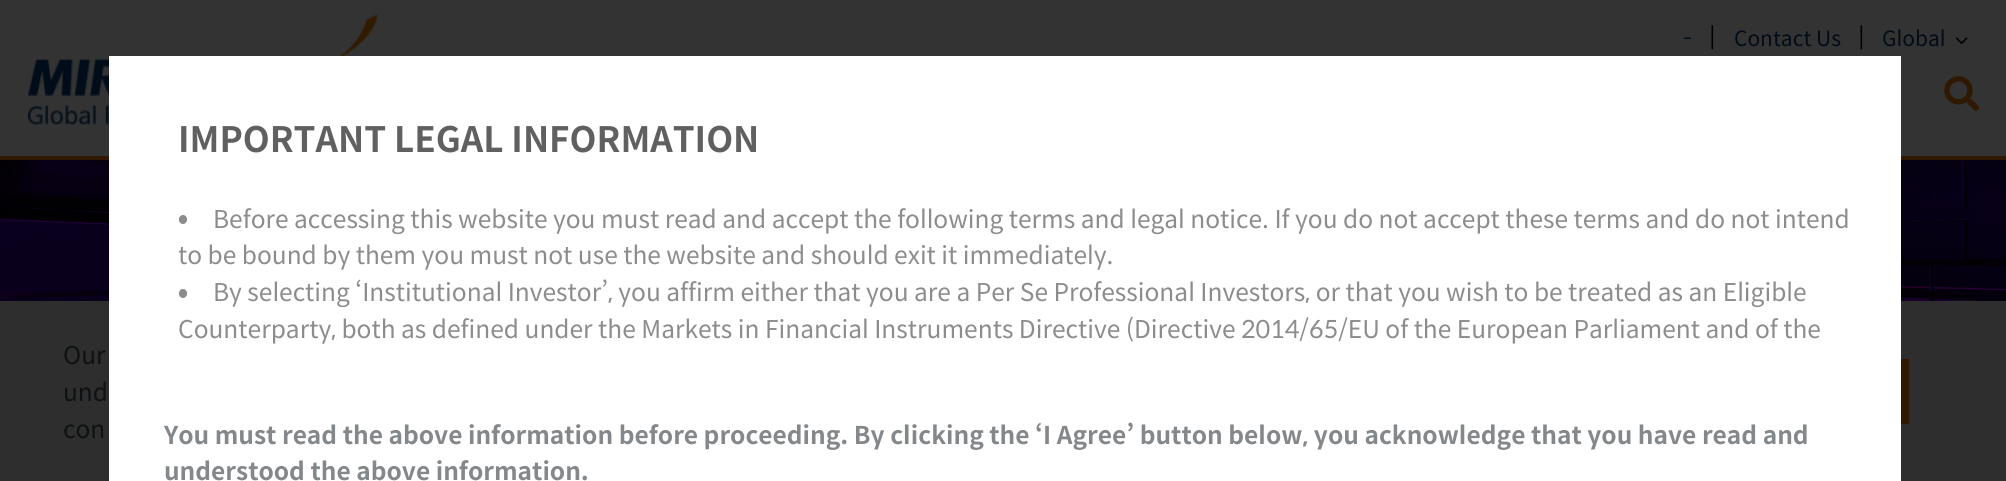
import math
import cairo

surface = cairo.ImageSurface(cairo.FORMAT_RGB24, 2006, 481)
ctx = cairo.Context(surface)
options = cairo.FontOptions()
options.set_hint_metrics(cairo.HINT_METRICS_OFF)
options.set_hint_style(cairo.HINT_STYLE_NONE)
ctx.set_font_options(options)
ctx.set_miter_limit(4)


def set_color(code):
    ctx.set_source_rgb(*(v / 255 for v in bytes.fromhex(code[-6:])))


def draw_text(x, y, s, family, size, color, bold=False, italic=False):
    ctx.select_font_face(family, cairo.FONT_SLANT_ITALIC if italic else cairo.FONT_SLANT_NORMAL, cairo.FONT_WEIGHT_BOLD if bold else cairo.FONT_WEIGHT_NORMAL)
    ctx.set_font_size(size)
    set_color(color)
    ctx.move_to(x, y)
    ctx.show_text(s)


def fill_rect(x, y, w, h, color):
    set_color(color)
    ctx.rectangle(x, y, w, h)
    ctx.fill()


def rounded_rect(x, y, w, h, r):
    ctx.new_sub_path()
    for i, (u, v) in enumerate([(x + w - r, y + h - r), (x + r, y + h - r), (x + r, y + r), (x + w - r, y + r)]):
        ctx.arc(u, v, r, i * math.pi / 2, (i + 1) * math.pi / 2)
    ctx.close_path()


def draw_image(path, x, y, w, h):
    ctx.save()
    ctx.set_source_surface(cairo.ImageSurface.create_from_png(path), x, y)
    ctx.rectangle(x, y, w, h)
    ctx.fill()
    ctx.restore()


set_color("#ffffff")
ctx.paint()
fill_rect(0, 0, 2006, 156, "#333333")
fill_rect(0, 156, 2006, 4, "#301903")
draw_image("assets/img1.png", 28, 14, 350, 111)
draw_text(1683, 46, "-", "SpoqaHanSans", 21, "#010c17")
draw_text(1709, 46, "|", "SpoqaHanSans", 24.5, "#000000")
draw_text(1734, 46, "Contact Us", "SpoqaHanSans", 21, "#010c17")
draw_text(1858, 46, "|", "SpoqaHanSans", 24.5, "#000000")
draw_text(1882, 46, "Global", "SpoqaHanSans", 21, "#010c17")
draw_image("assets/img2.png", 1955, 37, 13, 8)
draw_image("assets/img3.png", 1944, 76, 36, 36)
draw_image("assets/img4.png", 0, 160, 2006, 141)
fill_rect(0, 301, 2006, 180, "#2e2e2f")
fill_rect(109, 56, 1792, 425, "#ffffff")
draw_text(178, 152, "IMPORTANT LEGAL INFORMATION", "SpoqaHanSans", 35, "#606060", bold=True)
set_color("#8c8c8c")
rounded_rect(179, 215, 8, 9, 4)
ctx.fill()
draw_text(213, 228, "Before accessing this website you must read and accept the following terms and legal notice. If you do not accept these terms and do not intend", "SpoqaHanSans", 24.5, "#8c8c8c")
ctx.save()
ctx.rectangle(179, 112, 1680, 242)
ctx.clip()
draw_text(178, 264, "to be bound by them you must not use the website and should exit it immediately.", "SpoqaHanSans", 24.5, "#8c8c8c")
ctx.restore()
rounded_rect(179, 289, 8, 9, 4)
ctx.fill()
draw_text(213, 301, "By selecting ‘Institutional Investor’, you affirm either that you are a Per Se Professional Investors, or that you wish to be treated as an Eligible", "SpoqaHanSans", 24.5, "#8c8c8c")
draw_text(178, 338, "Counterparty, both as defined under the Markets in Financial Instruments Directive (Directive 2014/65/EU of the European Parliament and of the", "SpoqaHanSans", 24.5, "#8c8c8c")
draw_text(164, 444, "You must read the above information before proceeding. By clicking the ‘I Agree’ button below, you acknowledge that you have read and", "SpoqaHanSans", 24.5, "#84888b", bold=True)
draw_text(164, 480, "understood the above information.", "SpoqaHanSans", 24.5, "#84888b", bold=True)
draw_text(63, 364, "Our", "SpoqaHanSans", 24.5, "#0e1112")
draw_text(63, 401, "und", "SpoqaHanSans", 24.5, "#0e1112")
draw_text(63, 438, "con", "SpoqaHanSans", 24.5, "#0e1112")
fill_rect(1901, 359, 8, 65, "#301903")
surface.write_to_png("output.png")
